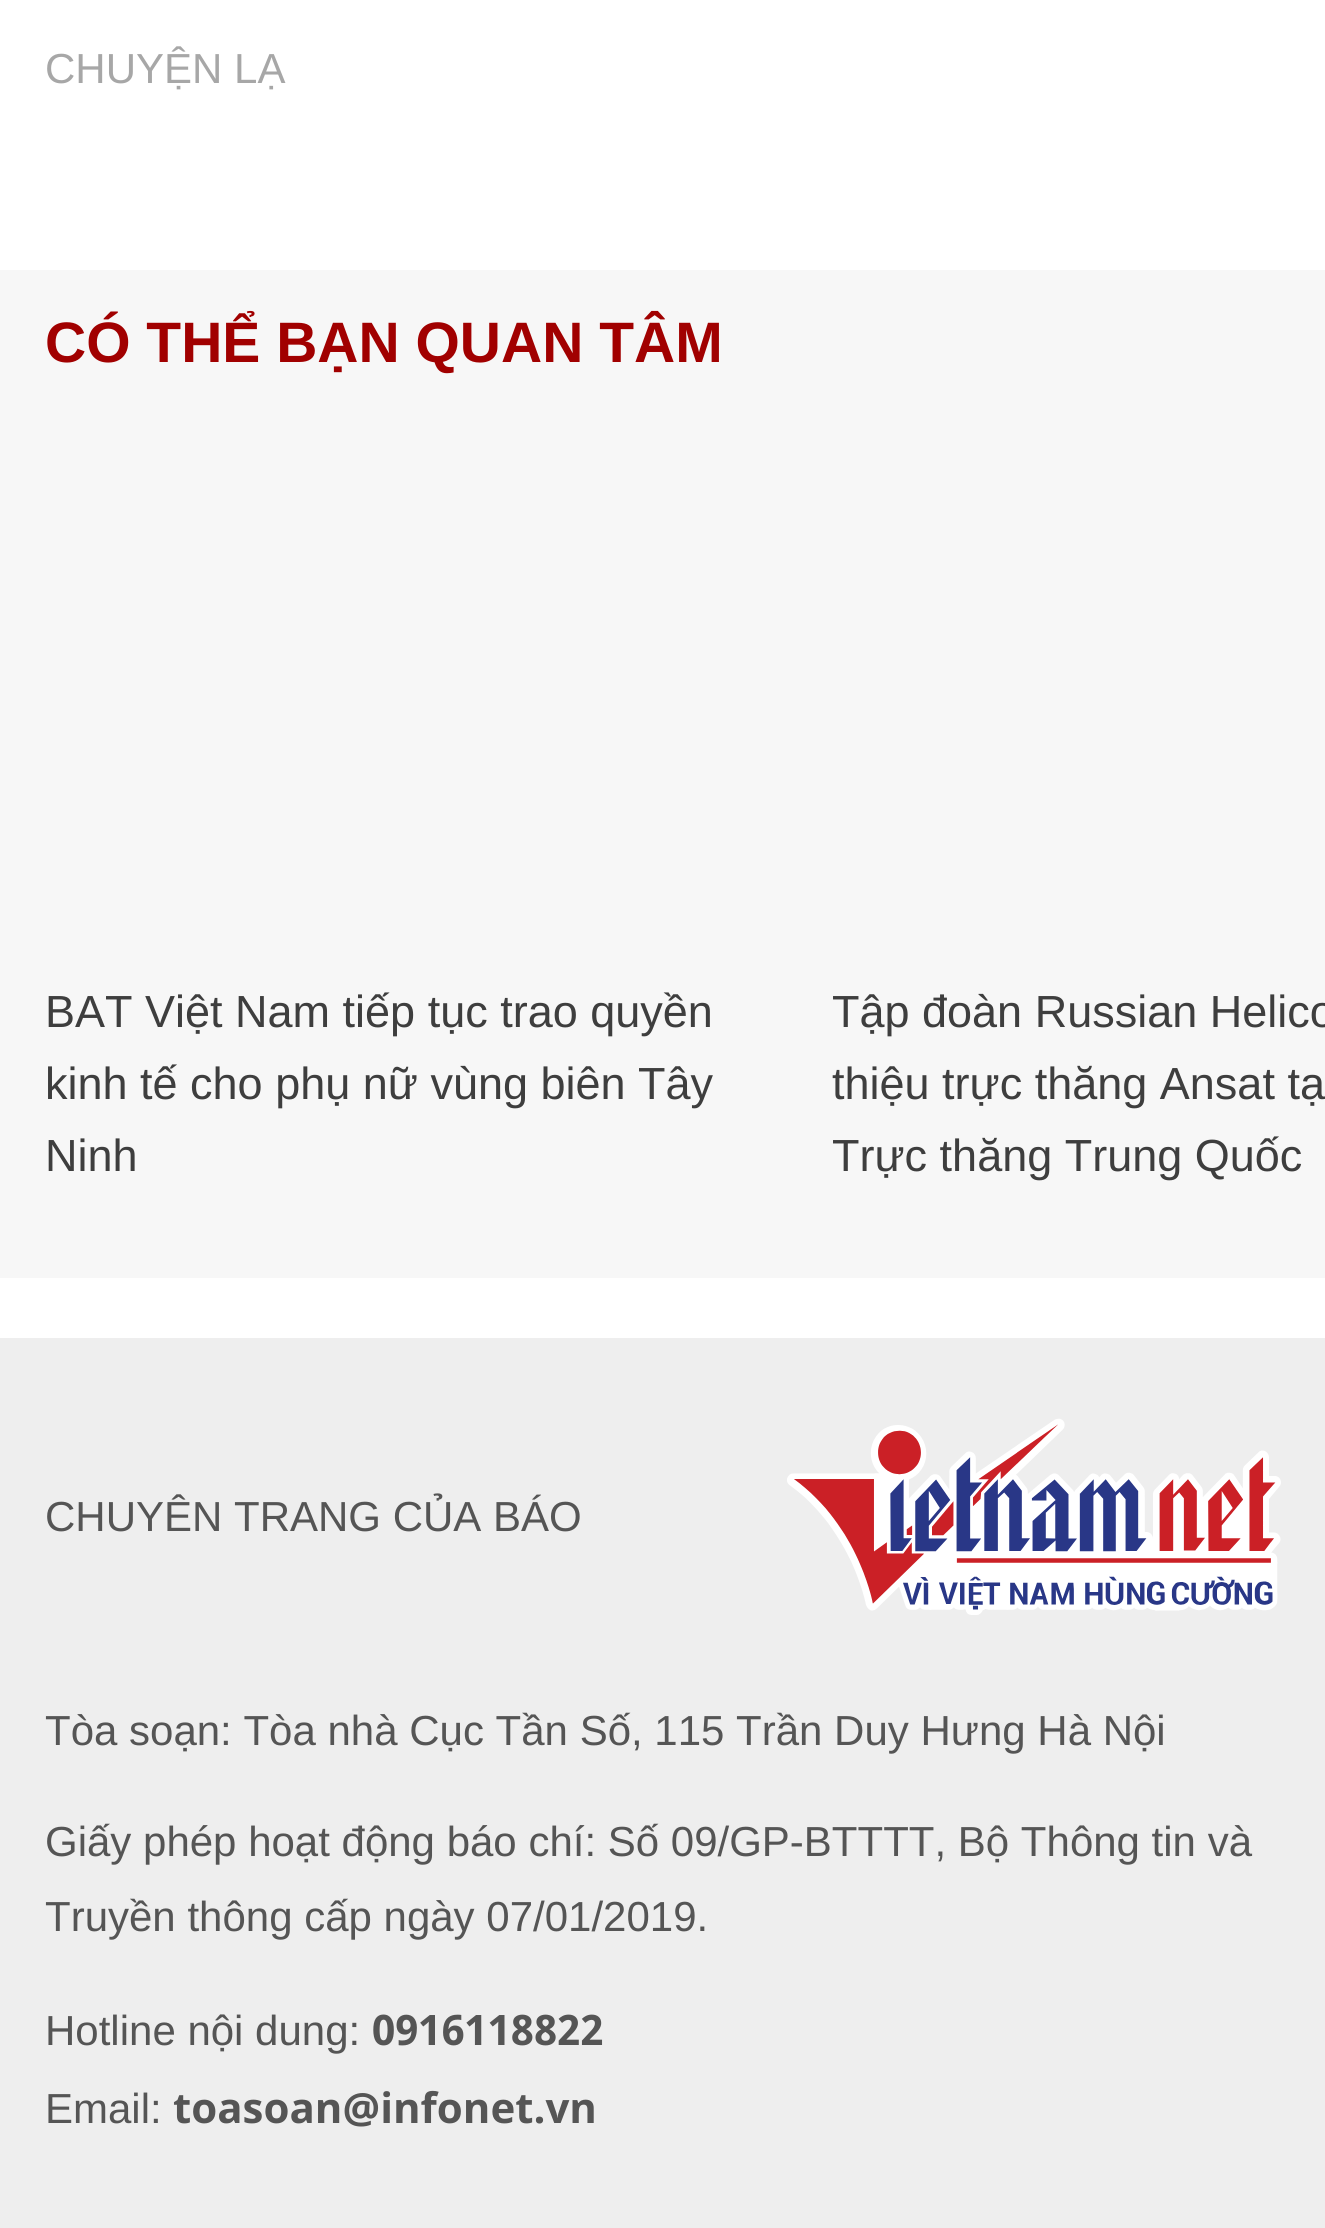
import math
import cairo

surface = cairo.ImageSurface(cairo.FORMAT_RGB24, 1325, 2228)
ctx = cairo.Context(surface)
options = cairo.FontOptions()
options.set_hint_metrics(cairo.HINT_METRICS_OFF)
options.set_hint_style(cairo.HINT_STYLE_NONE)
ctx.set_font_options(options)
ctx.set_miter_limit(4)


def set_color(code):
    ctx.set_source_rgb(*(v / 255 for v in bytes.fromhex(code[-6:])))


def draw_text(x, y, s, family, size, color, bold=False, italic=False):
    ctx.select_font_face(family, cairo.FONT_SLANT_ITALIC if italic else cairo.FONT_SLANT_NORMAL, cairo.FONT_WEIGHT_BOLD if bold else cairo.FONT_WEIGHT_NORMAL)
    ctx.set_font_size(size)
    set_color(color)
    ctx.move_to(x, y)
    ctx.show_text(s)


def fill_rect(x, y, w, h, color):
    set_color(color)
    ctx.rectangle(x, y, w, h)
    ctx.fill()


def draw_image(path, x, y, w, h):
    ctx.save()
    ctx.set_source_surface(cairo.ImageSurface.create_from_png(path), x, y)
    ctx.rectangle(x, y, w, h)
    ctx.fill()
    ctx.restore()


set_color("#ffffff")
ctx.paint()
draw_text(45, 83, "CHUYỆN LẠ", "Liberation Sans", 42, "#a7a7a7")
fill_rect(0, 270, 1325, 1008, "#f7f7f7")
draw_text(45, 362, "CÓ THỂ BẠN QUAN TÂM", "Liberation Sans", 57, "#a10000", bold=True)
draw_text(45, 1027, "BAT Việt Nam tiếp tục trao quyền", "Liberation Sans", 45, "#3e3e3e")
draw_text(45, 1099, "kinh tế cho phụ nữ vùng biên Tây", "Liberation Sans", 45, "#3e3e3e")
draw_text(45, 1171, "Ninh", "Liberation Sans", 45, "#3e3e3e")
draw_text(832, 1027, "Tập đoàn Russian Helico", "Liberation Sans", 45, "#3e3e3e")
draw_text(832, 1099, "thiệu trực thăng Ansat tạ", "Liberation Sans", 45, "#3e3e3e")
draw_text(832, 1171, "Trực thăng Trung Quốc", "Liberation Sans", 45, "#3e3e3e")
fill_rect(0, 1338, 1325, 890, "#eeeeee")
draw_text(45, 1531, "CHUYÊN TRANG CỦA BÁO", "Liberation Sans", 42, "#555555")
draw_image("assets/img1.png", 787, 1418, 494, 197)
draw_text(45, 1745, "Tòa soạn: Tòa nhà Cục Tần Số, 115 Trần Duy Hưng Hà Nội", "Liberation Sans", 42, "#555555")
draw_text(45, 1856, "Giấy phép hoạt động báo chí: Số 09/GP-BTTTT, Bộ Thông tin và", "Liberation Sans", 42, "#555555")
draw_text(45, 1931, "Truyền thông cấp ngày 07/01/2019.", "Liberation Sans", 42, "#555555")
draw_text(45, 2045, "Hotline nội dung:", "Liberation Sans", 42, "#555555")
draw_text(372, 2045, "0916118822", "Noto Sans", 42, "#555555", bold=True)
draw_text(45, 2123, "Email:", "Liberation Sans", 42, "#555555")
draw_text(173, 2123, "toasoan@infonet.vn", "Noto Sans", 42, "#555555", bold=True)
surface.write_to_png("output.png")
